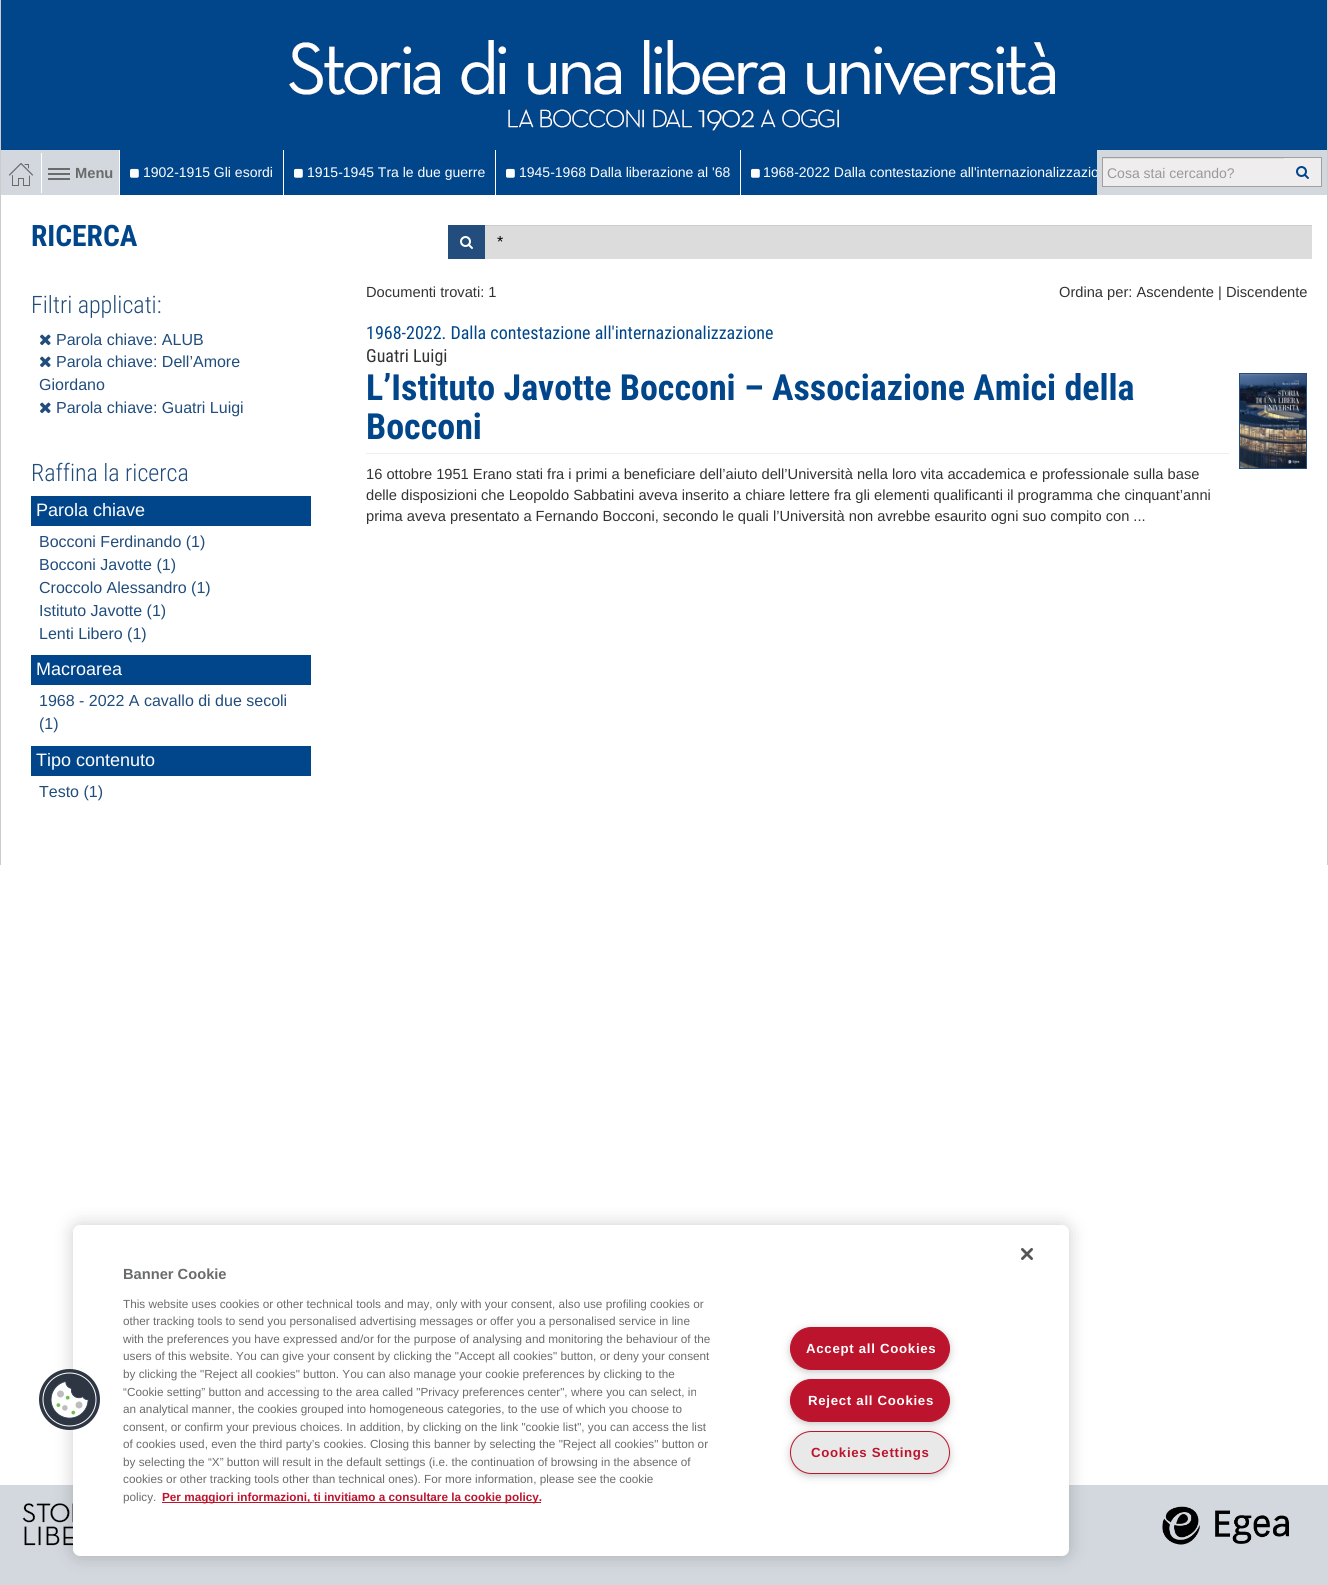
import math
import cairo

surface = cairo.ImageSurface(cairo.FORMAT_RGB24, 1328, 1585)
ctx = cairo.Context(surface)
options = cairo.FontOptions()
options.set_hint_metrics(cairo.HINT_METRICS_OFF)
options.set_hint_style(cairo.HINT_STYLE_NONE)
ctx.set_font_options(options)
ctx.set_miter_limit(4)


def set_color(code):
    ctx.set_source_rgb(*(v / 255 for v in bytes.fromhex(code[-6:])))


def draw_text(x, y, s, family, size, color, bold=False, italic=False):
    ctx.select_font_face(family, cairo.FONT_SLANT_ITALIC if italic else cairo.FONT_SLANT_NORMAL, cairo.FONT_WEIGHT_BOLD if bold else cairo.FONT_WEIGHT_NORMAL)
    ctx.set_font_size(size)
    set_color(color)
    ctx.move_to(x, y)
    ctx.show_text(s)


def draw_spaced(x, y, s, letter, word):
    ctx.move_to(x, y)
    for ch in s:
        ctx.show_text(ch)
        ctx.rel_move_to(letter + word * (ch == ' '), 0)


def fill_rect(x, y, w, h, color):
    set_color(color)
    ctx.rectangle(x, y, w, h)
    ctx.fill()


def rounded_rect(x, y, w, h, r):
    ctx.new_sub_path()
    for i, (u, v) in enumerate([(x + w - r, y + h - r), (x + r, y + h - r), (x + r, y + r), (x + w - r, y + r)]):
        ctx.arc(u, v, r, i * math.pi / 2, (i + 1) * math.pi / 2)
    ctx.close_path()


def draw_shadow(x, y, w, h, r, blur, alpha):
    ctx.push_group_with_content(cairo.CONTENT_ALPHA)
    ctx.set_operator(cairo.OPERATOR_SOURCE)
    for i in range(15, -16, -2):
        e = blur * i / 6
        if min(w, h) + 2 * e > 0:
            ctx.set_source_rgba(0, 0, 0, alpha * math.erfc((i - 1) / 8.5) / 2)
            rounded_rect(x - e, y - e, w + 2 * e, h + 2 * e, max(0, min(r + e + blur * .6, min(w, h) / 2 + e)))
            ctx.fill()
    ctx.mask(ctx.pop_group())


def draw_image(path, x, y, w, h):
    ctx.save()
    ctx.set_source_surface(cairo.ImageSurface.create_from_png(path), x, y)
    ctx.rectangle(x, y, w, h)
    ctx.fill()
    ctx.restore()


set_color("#ffffff")
ctx.paint()
fill_rect(1327, 0, 1, 865, "#cccccc")
fill_rect(0, 0, 1, 865, "#cccccc")
fill_rect(1, 0, 1326, 150, "#01468b")
draw_image("assets/img1.png", 289, 40, 766, 91)
fill_rect(120, 150, 977, 45, "#01468b")
fill_rect(1, 150, 118, 45, "#d3d8de")
draw_image("assets/img2.png", 9, 163, 24, 23)
fill_rect(41, 153, 1, 40, "#ffffff")
draw_image("assets/img3.png", 48, 168, 22, 12)
draw_text(75, 178, "Menu", "Liberation Sans", 14.67, "#6a6b6b", bold=True)
draw_image("assets/img4.png", 130, 168, 9, 10)
draw_text(143, 177, "1902-1915 Gli esordi", "Liberation Sans", 14, "#ffffff")
fill_rect(283, 150, 1, 45, "#ffffff")
draw_image("assets/img4.png", 294, 168, 9, 10)
draw_text(307, 177, "1915-1945 Tra le due guerre", "Liberation Sans", 14, "#ffffff")
fill_rect(495, 150, 1, 45, "#ffffff")
draw_image("assets/img4.png", 506, 168, 9, 10)
draw_text(519, 177, "1945-1968 Dalla liberazione al '68", "Liberation Sans", 14, "#ffffff")
fill_rect(740, 150, 1, 45, "#ffffff")
draw_image("assets/img4.png", 751, 168, 9, 10)
draw_text(763, 177, "1968-2022 Dalla contestazione all'internazionalizzazio", "Liberation Sans", 14, "#ffffff")
fill_rect(1097, 150, 230, 45, "#d3d8de")
fill_rect(1103, 159, 181, 27, "#efedee")
fill_rect(1103, 158, 181, 1, "#dddbdc")
ctx.rectangle(1102.5, 157.5, 182, 29)
set_color("#a0a0a0")
ctx.set_line_width(1)
ctx.stroke()
draw_text(1107, 178, "Cosa stai cercando?", "Liberation Sans", 14, "#999999")
fill_rect(1284, 158, 37, 28, "#efedee")
fill_rect(1284, 157, 38, 1, "#a0a0a0")
fill_rect(1321, 157, 1, 30, "#a0a0a0")
fill_rect(1284, 186, 38, 1, "#a0a0a0")
draw_image("assets/img5.png", 1296, 166, 13, 13)
draw_text(31, 246, "RICERCA", "Roboto Condensed", 29.5, "#01468b", bold=True)
fill_rect(448, 225, 37, 34, "#234d7d")
draw_image("assets/img6.png", 460, 236, 13, 13)
fill_rect(485, 226, 827, 33, "#dcdcdc")
fill_rect(485, 225, 827, 1, "#cccccc")
draw_text(497, 247, "*", "Liberation Sans", 16, "#000000")
draw_text(31, 313, "Filtri applicati:", "Roboto Condensed Light", 24, "#214d7d")
draw_image("assets/img7.png", 40, 334, 11, 12)
draw_text(56, 345, "Parola chiave: ALUB", "Liberation Sans", 16, "#214d7d")
draw_image("assets/img7.png", 40, 356, 11, 12)
draw_text(56, 367, "Parola chiave: Dell’Amore", "Liberation Sans", 16, "#214d7d")
draw_text(39, 390, "Giordano", "Liberation Sans", 16, "#214d7d")
draw_image("assets/img7.png", 40, 402, 11, 12)
draw_text(56, 413, "Parola chiave: Guatri Luigi", "Liberation Sans", 16, "#214d7d")
draw_text(31, 481, "Raffina la ricerca", "Roboto Condensed Light", 24, "#214d7d")
fill_rect(31, 496, 280, 30, "#01468b")
draw_text(36, 516, "Parola chiave", "Liberation Sans", 18, "#ffffff")
draw_text(39, 547, "Bocconi Ferdinando (1)", "Liberation Sans", 16, "#214d7d")
draw_text(39, 570, "Bocconi Javotte (1)", "Liberation Sans", 16, "#214d7d")
draw_text(39, 593, "Croccolo Alessandro (1)", "Liberation Sans", 16, "#214d7d")
draw_text(39, 616, "Istituto Javotte (1)", "Liberation Sans", 16, "#214d7d")
draw_text(39, 639, "Lenti Libero (1)", "Liberation Sans", 16, "#214d7d")
fill_rect(31, 655, 280, 30, "#01468b")
draw_text(36, 675, "Macroarea", "Liberation Sans", 18, "#ffffff")
draw_text(39, 706, "1968 - 2022 A cavallo di due secoli", "Liberation Sans", 16, "#214d7d")
draw_text(39, 729, "(1)", "Liberation Sans", 16, "#214d7d")
fill_rect(31, 746, 280, 30, "#01468b")
draw_text(36, 766, "Tipo contenuto", "Liberation Sans", 18, "#ffffff")
draw_text(39, 797, "Testo (1)", "Liberation Sans", 16, "#214d7d")
draw_text(366, 297, "Documenti trovati: 1", "Liberation Sans", 14.67, "#333333")
draw_text(1059, 297, "Ordina per: Ascendente | Discendente", "Liberation Sans", 14.67, "#333333")
draw_text(366, 339, "1968-2022. Dalla contestazione all'internazionalizzazione", "Roboto Condensed", 18, "#01468b")
draw_text(366, 362, "Guatri Luigi", "Roboto Condensed", 18, "#333333")
draw_text(366, 400, "L’Istituto Javotte Bocconi – Associazione Amici della", "Roboto Condensed", 36, "#01468b", bold=True)
draw_text(366, 439, "Bocconi", "Roboto Condensed", 36, "#01468b", bold=True)
fill_rect(366, 453, 863, 1, "#eeeeee")
draw_text(366, 479, "16 ottobre 1951 Erano stati fra i primi a beneficiare dell’aiuto dell’Università nella loro vita accademica e professionale sulla base", "Liberation Sans", 14.67, "#333333")
draw_text(366, 500, "delle disposizioni che Leopoldo Sabbatini aveva inserito a chiare lettere fra gli elementi qualificanti il programma che cinquant’anni", "Liberation Sans", 14.67, "#333333")
draw_text(366, 521, "prima aveva presentato a Fernando Bocconi, secondo le quali l’Università non avrebbe esaurito ogni suo compito con ...", "Liberation Sans", 14.67, "#333333")
ctx.rectangle(1239.5, 373.5, 67, 95)
set_color("#234d7d")
ctx.stroke()
draw_image("assets/img8.png", 1240, 374, 66, 94)
fill_rect(0, 1485, 1328, 100, "#d3d8de")
draw_image("assets/img11.png", 22, 1503, 51, 43)
set_color("#000000")
draw_shadow(73, 1225, 996, 331, 7, 9, 0.2)
set_color("#ffffff")
rounded_rect(73, 1225, 996, 331, 7)
ctx.fill()
draw_image("assets/img9.png", 39, 1369, 61, 61)
draw_image("assets/img10.png", 1021, 1248, 12, 12)
draw_text(123, 1279, "Banner Cookie", "Liberation Sans", 14.67, "#6a6b6b", bold=True)
draw_text(123, 1308, "This website uses cookies or other technical tools and may, only with your consent, also use profiling cookies or", "Liberation Sans", 11.75, "#6a6b6b")
draw_text(123, 1325, "other tracking tools to send you personalised advertising messages or offer you a personalised service in line", "Liberation Sans", 11.75, "#6a6b6b")
draw_text(123, 1343, "with the preferences you have expressed and/or for the purpose of analysing and monitoring the behaviour of the", "Liberation Sans", 11.75, "#6a6b6b")
draw_text(123, 1360, "users of this website. You can give your consent by clicking the \"Accept all cookies\" button, or deny your consent", "Liberation Sans", 11.75, "#6a6b6b")
draw_text(123, 1378, "by clicking the \"Reject all cookies\" button. You can also manage your cookie preferences by clicking to the", "Liberation Sans", 11.75, "#6a6b6b")
draw_text(123, 1396, "“Cookie setting” button and accessing to the area called \"Privacy preferences center\", where you can select, in", "Liberation Sans", 11.75, "#6a6b6b")
draw_text(123, 1413, "an analytical manner, the cookies grouped into homogeneous categories, to the use of which you choose to", "Liberation Sans", 11.75, "#6a6b6b")
draw_text(123, 1431, "consent, or confirm your previous choices. In addition, by clicking on the link \"cookie list\", you can access the list", "Liberation Sans", 11.75, "#6a6b6b")
draw_text(123, 1448, "of cookies used, even the third party’s cookies. Closing this banner by selecting the \"Reject all cookies\" button or", "Liberation Sans", 11.75, "#6a6b6b")
draw_text(123, 1466, "by selecting the “X” button will result in the default settings (i.e. the continuation of browsing in the absence of", "Liberation Sans", 11.75, "#6a6b6b")
draw_text(123, 1483, "cookies or other tracking tools other than technical ones). For more information, please see the cookie", "Liberation Sans", 11.75, "#6a6b6b")
draw_text(123, 1501, "policy.", "Liberation Sans", 11.75, "#6a6b6b")
fill_rect(162, 1502, 379, 1, "#bd142d")
draw_text(162, 1501, "Per maggiori informazioni, ti invitiamo a consultare la cookie policy.", "Liberation Sans", 11.75, "#bd142d", bold=True)
set_color("#999999")
draw_shadow(793, 1332, 154, 37, 18.5, 5, 1)
set_color("#bd142d")
rounded_rect(790.5, 1327.5, 159, 42, 21)
ctx.fill_preserve()
ctx.stroke()
ctx.set_font_size(13.25)
set_color("#ffffff")
draw_spaced(806, 1353, "Accept all Cookies", 0.7, 0)
set_color("#999999")
draw_shadow(793, 1384, 154, 37, 18.5, 5, 1)
set_color("#bd142d")
rounded_rect(790.5, 1379.5, 159, 42, 21)
ctx.fill_preserve()
ctx.stroke()
set_color("#ffffff")
draw_spaced(808, 1405, "Reject all Cookies", 0.7, 0)
set_color("#999999")
draw_shadow(793, 1436, 154, 37, 18.5, 5, 1)
set_color("#e9e9e9")
rounded_rect(790.5, 1431.5, 159, 42, 21)
ctx.fill_preserve()
set_color("#bd142d")
ctx.stroke()
draw_spaced(811, 1457, "Cookies Settings", 0.7, 0)
draw_image("assets/img12.png", 1162, 1506, 127, 39)
surface.write_to_png("output.png")
